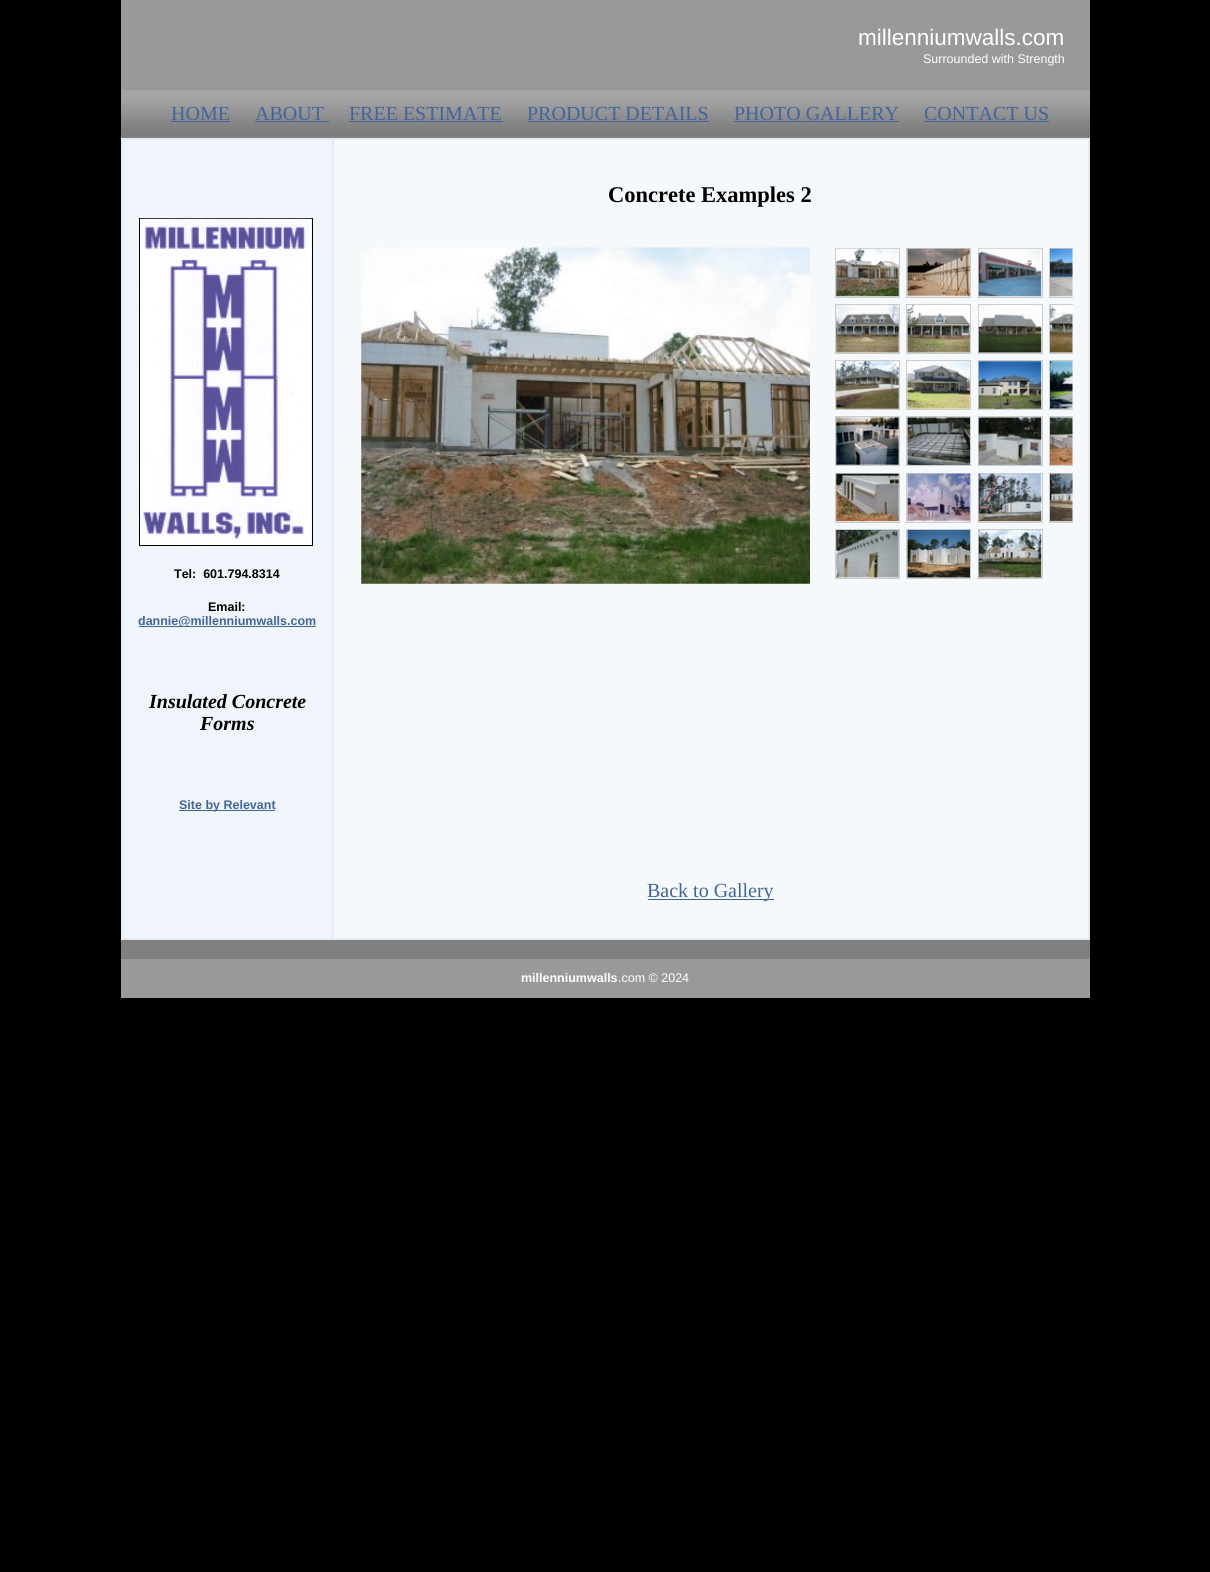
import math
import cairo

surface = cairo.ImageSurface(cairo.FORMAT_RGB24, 1210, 1572)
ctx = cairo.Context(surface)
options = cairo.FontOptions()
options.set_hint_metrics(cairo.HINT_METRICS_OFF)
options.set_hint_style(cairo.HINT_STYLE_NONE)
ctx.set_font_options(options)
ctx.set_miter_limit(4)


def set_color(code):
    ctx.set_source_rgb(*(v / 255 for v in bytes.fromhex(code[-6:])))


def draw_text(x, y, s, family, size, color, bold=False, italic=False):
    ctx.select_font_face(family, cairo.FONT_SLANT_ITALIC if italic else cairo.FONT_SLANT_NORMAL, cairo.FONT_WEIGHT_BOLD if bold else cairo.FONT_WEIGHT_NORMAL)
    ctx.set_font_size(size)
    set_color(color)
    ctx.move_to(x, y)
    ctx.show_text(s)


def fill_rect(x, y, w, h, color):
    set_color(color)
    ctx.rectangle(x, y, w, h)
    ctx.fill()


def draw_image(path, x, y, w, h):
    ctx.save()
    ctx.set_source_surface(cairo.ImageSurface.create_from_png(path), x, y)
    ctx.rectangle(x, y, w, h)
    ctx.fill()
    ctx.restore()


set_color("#000000")
ctx.paint()
fill_rect(121, 0, 969, 90, "#999999")
draw_text(858, 45, "millenniumwalls.com", "Liberation Sans", 22.5, "#ffffff")
draw_text(923, 63, "Surrounded with Strength", "Liberation Sans", 12.5, "#ffffff")
fill_rect(121, 90, 969, 48, "#7a8b9d")
draw_image("assets/img1.png", 121, 90, 969, 48)
draw_text(171, 120, "HOME", "Liberation Serif", 20, "#41659b")
fill_rect(171, 121, 59, 1, "#41659b")
draw_text(255, 120, "ABOUT", "Liberation Serif", 20, "#41659b")
fill_rect(255, 121, 74, 1, "#41659b")
draw_text(349, 120, "FREE ESTIMATE", "Liberation Serif", 20, "#41659b")
fill_rect(349, 121, 154, 1, "#41659b")
draw_text(527, 120, "PRODUCT DETAILS", "Liberation Serif", 20, "#41659b")
fill_rect(528, 121, 181, 1, "#41659b")
draw_text(734, 120, "PHOTO GALLERY", "Liberation Serif", 20, "#41659b")
fill_rect(734, 121, 165, 1, "#41659b")
draw_text(924, 120, "CONTACT US", "Liberation Serif", 20, "#41659b")
fill_rect(924, 121, 125, 1, "#41659b")
fill_rect(122, 139, 210, 800, "#f0f5fb")
ctx.rectangle(121.5, 138.5, 968, 801)
set_color("#e5ebf0")
ctx.set_line_width(1)
ctx.stroke()
ctx.rectangle(123.5, 139.5, 209, 799)
ctx.stroke()
ctx.rectangle(139.5, 218.5, 173, 327)
set_color("#000000")
ctx.stroke()
draw_image("assets/img2.png", 140, 218, 172, 327)
draw_text(174, 578, "Tel:  601.794.8314", "Liberation Sans", 12.5, "#000000", bold=True)
draw_text(208, 611, "Email:", "Liberation Sans", 12.5, "#000000", bold=True)
fill_rect(139, 626, 177, 1, "#41659b")
draw_text(138, 625, "dannie@millenniumwalls.com", "Liberation Sans", 12.5, "#41659b", bold=True)
draw_text(149, 708, "Insulated Concrete", "Liberation Serif", 20, "#000000", bold=True, italic=True)
draw_text(200, 730, "Forms", "Liberation Serif", 20, "#000000", bold=True, italic=True)
fill_rect(179, 810, 96, 1, "#41659b")
draw_text(179, 809, "Site by Relevant", "Liberation Sans", 12.5, "#41659b", bold=True)
set_color("#f5f9fc")
ctx.rectangle(333.5, 139.5, 755, 799)
ctx.fill_preserve()
set_color("#e5ebf0")
ctx.stroke()
draw_text(608, 202, "Concrete Examples 2", "Liberation Serif", 22.5, "#000000", bold=True)
draw_image("assets/img3.png", 361, 247, 449, 337)
ctx.rectangle(835.5, 248.5, 64, 49)
set_color("#cccccc")
ctx.stroke()
draw_image("assets/img4.png", 836, 248, 63, 49)
ctx.rectangle(906.5, 248.5, 64, 49)
ctx.stroke()
draw_image("assets/img5.png", 907, 248, 63, 49)
ctx.rectangle(978.5, 248.5, 64, 49)
ctx.stroke()
draw_image("assets/img6.png", 978, 248, 64, 49)
ctx.save()
ctx.rectangle(823, 235, 250, 625)
ctx.clip()
ctx.rectangle(1049.5, 248.5, 64, 49)
ctx.stroke()
ctx.restore()
draw_image("assets/img7.png", 1050, 248, 23, 49)
ctx.rectangle(835.5, 304.5, 64, 49)
ctx.stroke()
draw_image("assets/img8.png", 836, 305, 63, 48)
ctx.rectangle(906.5, 304.5, 64, 49)
ctx.stroke()
draw_image("assets/img9.png", 907, 305, 63, 48)
ctx.rectangle(978.5, 304.5, 64, 49)
ctx.stroke()
draw_image("assets/img10.png", 978, 305, 64, 48)
ctx.save()
ctx.rectangle(823, 235, 250, 625)
ctx.clip()
ctx.rectangle(1049.5, 304.5, 64, 49)
ctx.stroke()
ctx.restore()
draw_image("assets/img11.png", 1050, 305, 23, 48)
ctx.rectangle(835.5, 360.5, 64, 49)
ctx.stroke()
draw_image("assets/img12.png", 836, 361, 63, 48)
ctx.rectangle(906.5, 360.5, 64, 49)
ctx.stroke()
draw_image("assets/img13.png", 907, 361, 63, 48)
ctx.rectangle(978.5, 360.5, 64, 49)
ctx.stroke()
draw_image("assets/img14.png", 978, 361, 64, 48)
ctx.save()
ctx.rectangle(823, 235, 250, 625)
ctx.clip()
ctx.rectangle(1049.5, 360.5, 64, 49)
ctx.stroke()
ctx.restore()
draw_image("assets/img15.png", 1050, 361, 23, 48)
ctx.rectangle(835.5, 416.5, 64, 49)
ctx.stroke()
draw_image("assets/img16.png", 836, 417, 63, 48)
ctx.rectangle(906.5, 416.5, 64, 49)
ctx.stroke()
draw_image("assets/img17.png", 907, 417, 63, 48)
ctx.rectangle(978.5, 416.5, 64, 49)
ctx.stroke()
draw_image("assets/img18.png", 978, 417, 64, 48)
ctx.save()
ctx.rectangle(823, 235, 250, 625)
ctx.clip()
ctx.rectangle(1049.5, 416.5, 64, 49)
ctx.stroke()
ctx.restore()
draw_image("assets/img19.png", 1050, 417, 23, 48)
ctx.rectangle(835.5, 473.5, 64, 49)
ctx.stroke()
draw_image("assets/img20.png", 836, 473, 63, 49)
ctx.rectangle(906.5, 473.5, 64, 49)
ctx.stroke()
draw_image("assets/img21.png", 907, 473, 63, 49)
ctx.rectangle(978.5, 473.5, 64, 49)
ctx.stroke()
draw_image("assets/img22.png", 978, 473, 64, 49)
ctx.save()
ctx.rectangle(823, 235, 250, 625)
ctx.clip()
ctx.rectangle(1049.5, 473.5, 64, 49)
ctx.stroke()
ctx.restore()
draw_image("assets/img23.png", 1050, 473, 23, 49)
ctx.rectangle(835.5, 529.5, 64, 49)
ctx.stroke()
draw_image("assets/img24.png", 836, 530, 63, 48)
ctx.rectangle(906.5, 529.5, 64, 49)
ctx.stroke()
draw_image("assets/img25.png", 907, 530, 63, 48)
ctx.rectangle(978.5, 529.5, 64, 49)
ctx.stroke()
draw_image("assets/img26.png", 978, 530, 64, 48)
fill_rect(648, 899, 126, 1, "#41659b")
draw_text(647, 897, "Back to Gallery", "Liberation Serif", 20, "#41659b")
fill_rect(121, 940, 969, 19, "#808080")
fill_rect(121, 959, 969, 39, "#999999")
draw_text(521, 982, "millenniumwalls", "Liberation Sans", 12.5, "#ffffff", bold=True)
draw_text(618, 982, ".com © 2024", "Liberation Sans", 12.5, "#ffffff")
surface.write_to_png("output.png")
